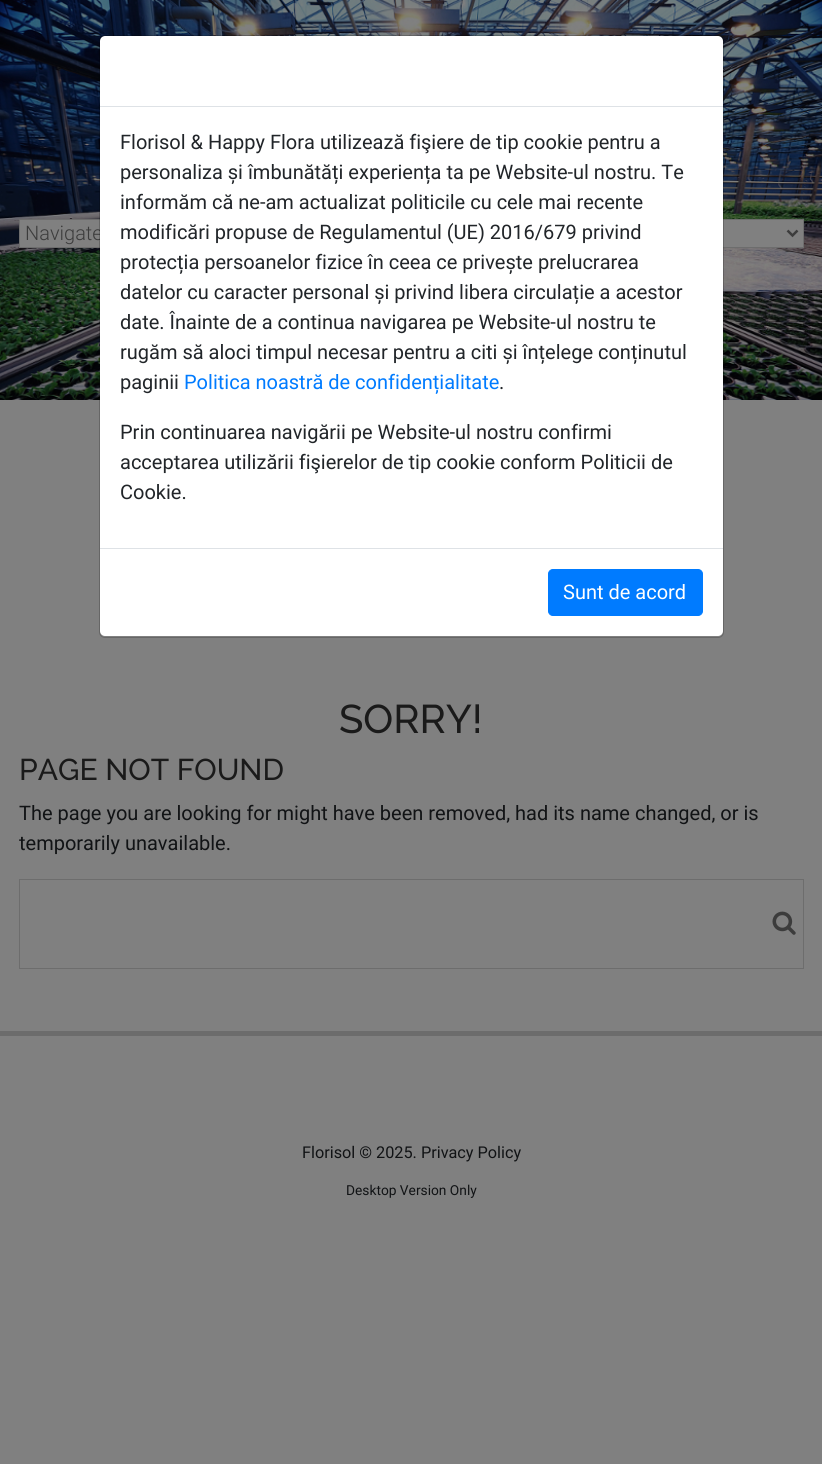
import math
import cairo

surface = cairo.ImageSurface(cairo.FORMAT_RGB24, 822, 1464)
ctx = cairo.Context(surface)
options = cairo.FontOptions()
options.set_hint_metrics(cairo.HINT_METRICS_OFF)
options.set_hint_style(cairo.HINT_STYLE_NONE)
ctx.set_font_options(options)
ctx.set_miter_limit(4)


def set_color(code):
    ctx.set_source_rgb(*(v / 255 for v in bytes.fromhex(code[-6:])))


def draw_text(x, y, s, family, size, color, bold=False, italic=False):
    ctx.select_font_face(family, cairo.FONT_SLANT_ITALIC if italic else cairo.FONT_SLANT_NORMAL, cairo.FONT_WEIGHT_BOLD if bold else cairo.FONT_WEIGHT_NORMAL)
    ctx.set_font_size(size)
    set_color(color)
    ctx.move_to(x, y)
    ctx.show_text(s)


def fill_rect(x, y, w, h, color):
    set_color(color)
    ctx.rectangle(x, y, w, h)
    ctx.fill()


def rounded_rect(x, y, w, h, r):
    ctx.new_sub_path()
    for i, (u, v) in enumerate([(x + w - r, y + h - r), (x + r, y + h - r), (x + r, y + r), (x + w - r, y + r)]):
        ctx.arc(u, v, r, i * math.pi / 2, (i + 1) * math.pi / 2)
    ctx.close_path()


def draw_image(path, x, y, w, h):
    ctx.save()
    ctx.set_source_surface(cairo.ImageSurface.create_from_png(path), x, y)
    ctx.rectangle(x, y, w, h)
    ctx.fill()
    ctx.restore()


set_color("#808080")
ctx.paint()
draw_image("assets/img1.png", 0, 0, 822, 400)
set_color("#808080")
ctx.rectangle(19.5, 219.5, 784, 28)
ctx.fill_preserve()
set_color("#6d6d6d")
ctx.set_line_width(1)
ctx.stroke()
draw_text(25, 240, "Navigate", "Roboto Light", 20, "#3c3c3c")
set_color("#ffffff")
rounded_rect(100, 36, 623, 600, 5)
ctx.fill()
rounded_rect(99.5, 35.5, 624, 602, 5.5)
ctx.set_source_rgba(0, 0, 0, 0.2)
ctx.stroke()
fill_rect(100, 106, 623, 1, "#dee2e6")
draw_text(120, 149, "Florisol & Happy Flora utilizează fişiere de tip cookie pentru a", "Roboto", 20, "#212529")
draw_text(120, 179, "personaliza și îmbunătăți experiența ta pe Website-ul nostru. Te", "Roboto", 20, "#212529")
draw_text(120, 209, "informăm că ne-am actualizat politicile cu cele mai recente", "Roboto", 20, "#212529")
draw_text(120, 239, "modificări propuse de Regulamentul (UE) 2016/679 privind", "Roboto", 20, "#212529")
draw_text(120, 269, "protecția persoanelor fizice în ceea ce privește prelucrarea", "Roboto", 20, "#212529")
draw_text(120, 299, "datelor cu caracter personal și privind libera circulație a acestor", "Roboto", 20, "#212529")
draw_text(120, 329, "date. Înainte de a continua navigarea pe Website-ul nostru te", "Roboto", 20, "#212529")
draw_text(120, 359, "rugăm să aloci timpul necesar pentru a citi și înțelege conținutul", "Roboto", 20, "#212529")
draw_text(120, 389, "paginii", "Roboto", 20, "#212529")
draw_text(184, 389, "Politica noastră de confidențialitate", "Roboto", 20, "#007bff")
draw_text(499, 389, ".", "Roboto", 20, "#212529")
draw_text(120, 439, "Prin continuarea navigării pe Website-ul nostru confirmi", "Roboto", 20, "#212529")
draw_text(120, 469, "acceptarea utilizării fişierelor de tip cookie conform Politicii de", "Roboto", 20, "#212529")
draw_text(120, 499, "Cookie.", "Roboto", 20, "#212529")
fill_rect(100, 548, 623, 1, "#dee2e6")
set_color("#007bff")
rounded_rect(548.5, 569.5, 154, 46, 4.5)
ctx.fill_preserve()
ctx.stroke()
draw_text(563, 599, "Sunt de acord", "Roboto", 20, "#ffffff")
ctx.new_path()
ctx.move_to(787.5, 230.5)
ctx.line_to(792.5, 235.5)
ctx.line_to(797.5, 230.5)
set_color("#3c3c3c")
ctx.set_line_width(2.5)
ctx.stroke()
draw_text(339, 733, "SORRY!", "Raleway Medium", 40, "#1a1a1a")
draw_text(19, 780, "PAGE NOT FOUND", "Raleway Medium", 30, "#1a1a1a")
draw_text(19, 820, "The page you are looking for might have been removed, had its name changed, or is", "Roboto", 20, "#111315")
draw_text(19, 850, "temporarily unavailable.", "Roboto", 20, "#111315")
ctx.rectangle(19.5, 879.5, 784, 89)
set_color("#6d6d6d")
ctx.set_line_width(1)
ctx.stroke()
draw_image("assets/img2.png", 772, 911, 24, 24)
fill_rect(0, 1031, 822, 5, "#6c6c6c")
draw_text(302, 1158, "Florisol © 2025. Privacy Policy", "Roboto", 16.25, "#111315")
draw_text(346, 1195, "Desktop Version Only", "Roboto", 13.75, "#111315")
surface.write_to_png("output.png")
